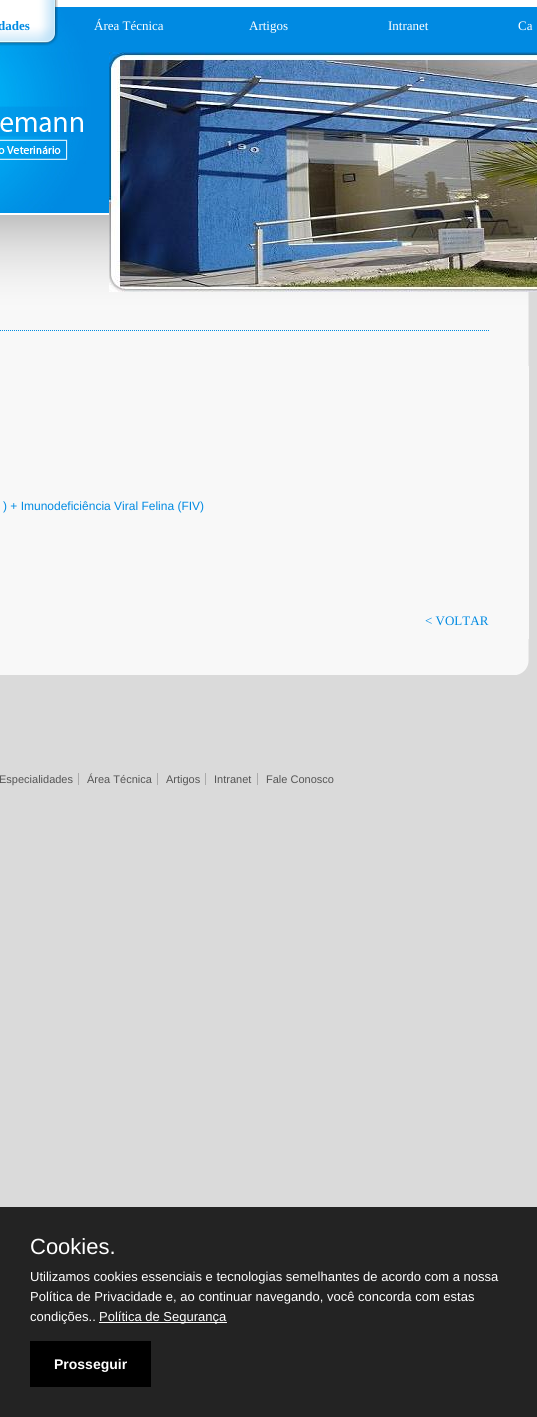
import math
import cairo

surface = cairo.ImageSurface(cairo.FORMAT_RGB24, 537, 1417)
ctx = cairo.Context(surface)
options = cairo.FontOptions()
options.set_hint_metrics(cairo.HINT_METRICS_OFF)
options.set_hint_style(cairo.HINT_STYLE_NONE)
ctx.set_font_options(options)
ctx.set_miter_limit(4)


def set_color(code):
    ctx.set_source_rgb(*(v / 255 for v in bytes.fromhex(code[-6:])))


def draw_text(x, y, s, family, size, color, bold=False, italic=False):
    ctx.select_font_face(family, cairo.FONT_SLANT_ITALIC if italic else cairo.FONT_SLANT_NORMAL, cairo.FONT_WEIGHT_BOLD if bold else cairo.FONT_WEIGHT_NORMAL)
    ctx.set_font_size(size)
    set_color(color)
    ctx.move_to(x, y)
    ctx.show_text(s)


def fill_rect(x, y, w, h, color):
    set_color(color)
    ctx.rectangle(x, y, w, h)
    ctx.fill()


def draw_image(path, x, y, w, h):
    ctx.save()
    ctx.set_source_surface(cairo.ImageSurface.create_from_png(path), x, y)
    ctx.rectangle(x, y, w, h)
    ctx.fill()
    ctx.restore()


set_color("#dadada")
ctx.paint()
draw_image("assets/img1.png", 0, 0, 537, 52)
draw_image("assets/img2.png", 0, 0, 58, 46)
draw_text(-2, 30, "dades", "Liberation Serif", 13, "#008ae2", bold=True)
draw_text(94, 30, "Área Técnica", "Liberation Serif", 13, "#ffffff")
draw_text(249, 30, "Artigos", "Liberation Serif", 13, "#ffffff")
draw_text(388, 30, "Intranet", "Liberation Serif", 13, "#ffffff")
draw_text(518, 30, "Ca", "Liberation Serif", 13, "#ffffff")
draw_image("assets/img3.png", 0, 52, 109, 163)
draw_image("assets/img5.png", 0, 215, 529, 151)
draw_image("assets/img4.png", 109, 52, 428, 240)
fill_rect(0, 366, 529, 273, "#f8f8f8")
ctx.new_path()
ctx.move_to(-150, 330.5)
ctx.line_to(489, 330.5)
set_color("#008be0")
ctx.set_line_width(1)
ctx.set_dash([1, 1])
ctx.stroke()
draw_text(3, 510, ") + Imunodeficiência Viral Felina (FIV)", "Liberation Sans", 12, "#008ae2")
draw_text(425, 625, "< VOLTAR", "Liberation Serif", 13, "#008ae2")
draw_image("assets/img6.png", 0, 639, 529, 36)
draw_text(-1, 783, "Especialidades", "Liberation Sans", 11, "#555555")
fill_rect(78, 773, 1, 12, "#aaaaaa")
draw_text(87, 783, "Área Técnica", "Liberation Sans", 11, "#555555")
fill_rect(157, 773, 1, 12, "#aaaaaa")
draw_text(166, 783, "Artigos", "Liberation Sans", 11, "#555555")
fill_rect(205, 773, 1, 12, "#aaaaaa")
draw_text(214, 783, "Intranet", "Liberation Sans", 11, "#555555")
fill_rect(257, 773, 1, 12, "#aaaaaa")
draw_text(266, 783, "Fale Conosco", "Liberation Sans", 11, "#555555")
fill_rect(0, 1207, 537, 210, "#232323")
draw_text(30, 1254, "Cookies.", "Liberation Sans", 22, "#ffffff")
draw_text(30, 1281, "Utilizamos cookies essenciais e tecnologias semelhantes de acordo com a nossa", "Liberation Sans", 13, "#ffffff")
draw_text(30, 1301, "Política de Privacidade e, ao continuar navegando, você concorda com estas", "Liberation Sans", 13, "#ffffff")
draw_text(30, 1321, "condições..", "Liberation Sans", 13, "#ffffff")
fill_rect(99, 1322, 128, 1, "#ffffff")
draw_text(99, 1321, "Política de Segurança", "Liberation Sans", 13, "#ffffff")
fill_rect(30, 1341, 121, 46, "#000000")
draw_text(54, 1369, "Prosseguir", "Liberation Sans", 14, "#ffffff", bold=True)
surface.write_to_png("output.png")
